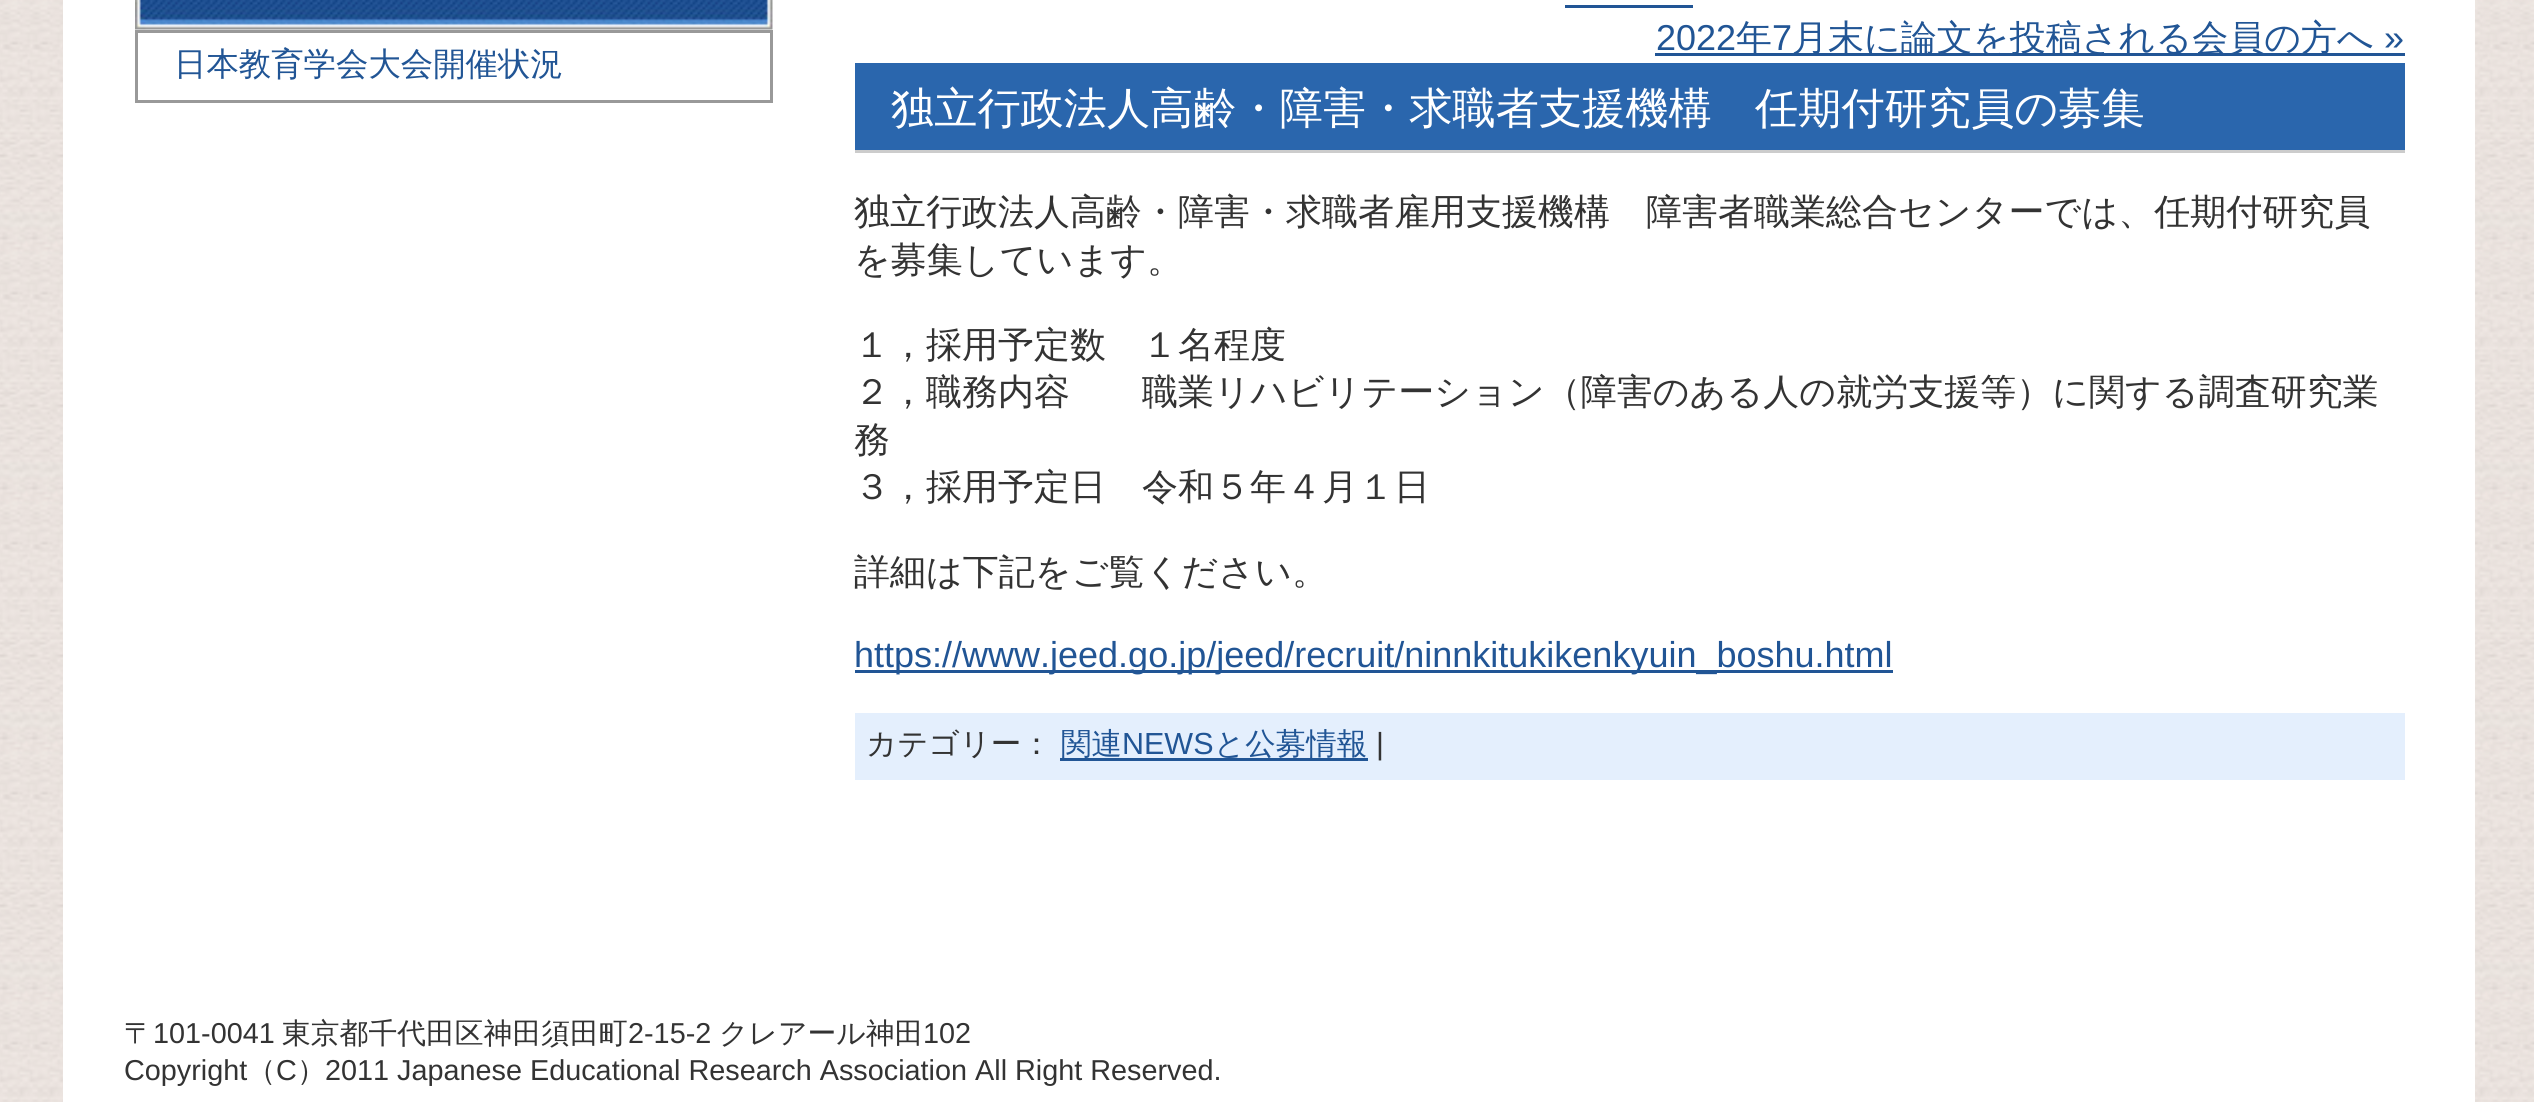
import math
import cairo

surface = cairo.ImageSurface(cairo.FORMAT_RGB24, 2534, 1102)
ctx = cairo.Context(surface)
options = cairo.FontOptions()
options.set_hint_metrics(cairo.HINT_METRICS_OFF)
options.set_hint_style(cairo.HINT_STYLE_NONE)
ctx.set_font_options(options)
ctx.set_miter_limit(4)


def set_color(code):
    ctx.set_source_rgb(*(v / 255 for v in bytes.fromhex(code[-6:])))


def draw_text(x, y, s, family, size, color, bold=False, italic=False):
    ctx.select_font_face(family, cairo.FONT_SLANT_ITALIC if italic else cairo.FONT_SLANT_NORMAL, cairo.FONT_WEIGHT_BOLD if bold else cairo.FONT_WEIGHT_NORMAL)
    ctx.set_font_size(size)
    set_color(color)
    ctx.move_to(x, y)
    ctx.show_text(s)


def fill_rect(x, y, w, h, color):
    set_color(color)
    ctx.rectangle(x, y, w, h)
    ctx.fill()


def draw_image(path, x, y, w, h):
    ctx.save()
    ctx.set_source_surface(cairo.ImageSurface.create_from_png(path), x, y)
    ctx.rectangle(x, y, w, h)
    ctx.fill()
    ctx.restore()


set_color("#ffffff")
ctx.paint()
draw_image("assets/img1.png", 0, 0, 2534, 1102)
fill_rect(63, 0, 2412, 1102, "#ffffff")
draw_image("assets/img2.png", 135, 0, 638, 30)
ctx.rectangle(136.5, 31.5, 635, 70)
set_color("#999999")
ctx.set_line_width(3)
ctx.stroke()
draw_text(174, 75, "日本教育学会大会開催状況", "WenQuanYi Zen Hei Medium", 32.4, "#215595")
fill_rect(1565, 5, 128, 3, "#215595")
draw_text(1656, 50, "2022", "Liberation Sans", 36, "#215595")
fill_rect(1655, 53, 750, 3, "#215595")
draw_text(1736, 50, "年", "WenQuanYi Zen Hei Medium", 36, "#215595")
draw_text(1772, 50, "7", "Liberation Sans", 36, "#215595")
draw_text(1792, 50, "月末に論文を投稿される会員の方へ", "WenQuanYi Zen Hei Medium", 36, "#215595")
draw_text(2384, 50, "»", "Liberation Sans", 36, "#215595")
fill_rect(855, 63, 1550, 87, "#2a66ad")
fill_rect(855, 150, 1550, 3, "#cccccc")
draw_text(891, 123, "独立行政法人高齢・障害・求職者支援機構　任期付研究員の募集", "WenQuanYi Zen Hei Medium", 43.2, "#ffffff")
draw_text(854, 224, "独立行政法人高齢・障害・求職者雇用支援機構　障害者職業総合センターでは、任期付研究員", "WenQuanYi Zen Hei Medium", 36, "#333333")
draw_text(854, 272, "を募集しています。", "WenQuanYi Zen Hei Medium", 36, "#333333")
draw_text(854, 357, "１，採用予定数　１名程度", "WenQuanYi Zen Hei Medium", 36, "#333333")
draw_text(854, 404, "２，職務内容　　職業リハビリテーション（障害のある人の就労支援等）に関する調査研究業", "WenQuanYi Zen Hei Medium", 36, "#333333")
draw_text(854, 452, "務", "WenQuanYi Zen Hei Medium", 36, "#333333")
draw_text(854, 499, "３，採用予定日　令和５年４月１日", "WenQuanYi Zen Hei Medium", 36, "#333333")
draw_text(854, 584, "詳細は下記をご覧ください。", "WenQuanYi Zen Hei Medium", 36, "#333333")
fill_rect(855, 670, 1038, 3, "#215595")
draw_text(854, 667, "https://www.jeed.go.jp/jeed/recruit/ninnkitukikenkyuin_boshu.html", "Liberation Sans", 36, "#215595")
fill_rect(855, 713, 1550, 67, "#e4effd")
draw_text(866, 754, "カテゴリー：", "WenQuanYi Zen Hei Medium", 30.5, "#333333")
fill_rect(1060, 758, 308, 3, "#215595")
draw_text(1061, 754, "関連", "WenQuanYi Zen Hei Medium", 30.5, "#215595")
draw_text(1122, 754, "NEWS", "Liberation Sans", 30.5, "#215595")
draw_text(1214, 754, "と公募情報", "WenQuanYi Zen Hei Medium", 30.5, "#215595")
draw_text(1376, 754, "|", "Liberation Sans", 30.5, "#333333")
draw_text(124, 1043, "〒", "WenQuanYi Zen Hei Medium", 28.8, "#333333")
draw_text(153, 1043, "101-0041", "Liberation Sans", 28.8, "#333333")
draw_text(282, 1043, "東京都千代田区神田須田町", "WenQuanYi Zen Hei Medium", 28.8, "#333333")
draw_text(628, 1043, "2-15-2", "Liberation Sans", 28.8, "#333333")
draw_text(719, 1043, "クレアール神田", "WenQuanYi Zen Hei Medium", 28.8, "#333333")
draw_text(923, 1043, "102", "Liberation Sans", 28.8, "#333333")
draw_text(124, 1080, "Copyright", "Liberation Sans", 28.8, "#333333")
draw_text(247, 1080, "（", "WenQuanYi Zen Hei Medium", 28.8, "#333333")
draw_text(276, 1080, "C", "Liberation Sans", 28.8, "#333333")
draw_text(297, 1080, "）", "WenQuanYi Zen Hei Medium", 28.8, "#333333")
draw_text(325, 1080, "2011 Japanese Educational Research Association All Right Reserved.", "Liberation Sans", 28.8, "#333333")
surface.write_to_png("output.png")
